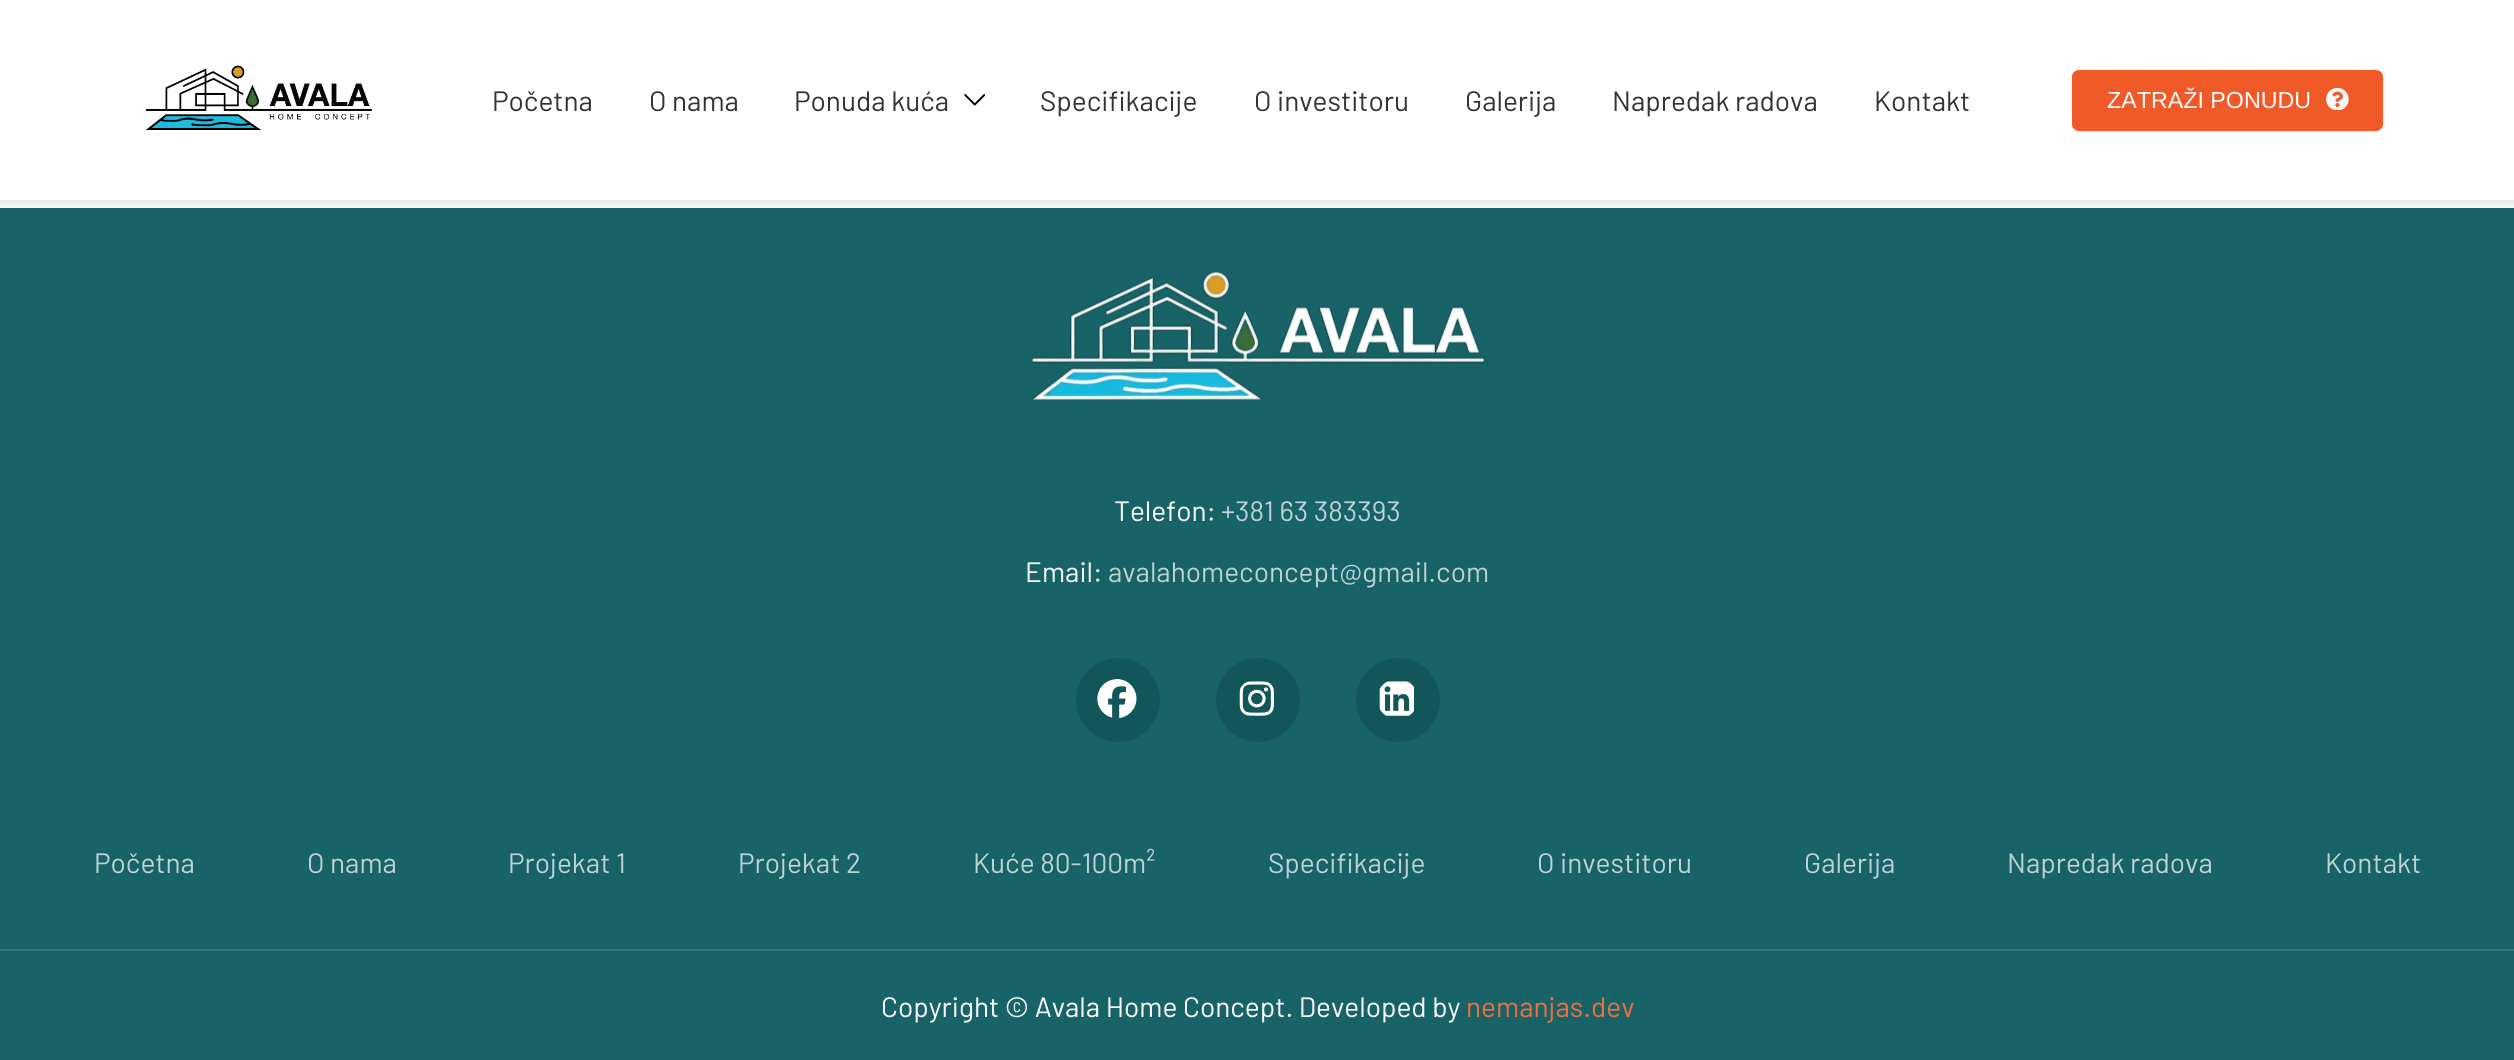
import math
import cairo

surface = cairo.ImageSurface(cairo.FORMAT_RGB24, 2514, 1060)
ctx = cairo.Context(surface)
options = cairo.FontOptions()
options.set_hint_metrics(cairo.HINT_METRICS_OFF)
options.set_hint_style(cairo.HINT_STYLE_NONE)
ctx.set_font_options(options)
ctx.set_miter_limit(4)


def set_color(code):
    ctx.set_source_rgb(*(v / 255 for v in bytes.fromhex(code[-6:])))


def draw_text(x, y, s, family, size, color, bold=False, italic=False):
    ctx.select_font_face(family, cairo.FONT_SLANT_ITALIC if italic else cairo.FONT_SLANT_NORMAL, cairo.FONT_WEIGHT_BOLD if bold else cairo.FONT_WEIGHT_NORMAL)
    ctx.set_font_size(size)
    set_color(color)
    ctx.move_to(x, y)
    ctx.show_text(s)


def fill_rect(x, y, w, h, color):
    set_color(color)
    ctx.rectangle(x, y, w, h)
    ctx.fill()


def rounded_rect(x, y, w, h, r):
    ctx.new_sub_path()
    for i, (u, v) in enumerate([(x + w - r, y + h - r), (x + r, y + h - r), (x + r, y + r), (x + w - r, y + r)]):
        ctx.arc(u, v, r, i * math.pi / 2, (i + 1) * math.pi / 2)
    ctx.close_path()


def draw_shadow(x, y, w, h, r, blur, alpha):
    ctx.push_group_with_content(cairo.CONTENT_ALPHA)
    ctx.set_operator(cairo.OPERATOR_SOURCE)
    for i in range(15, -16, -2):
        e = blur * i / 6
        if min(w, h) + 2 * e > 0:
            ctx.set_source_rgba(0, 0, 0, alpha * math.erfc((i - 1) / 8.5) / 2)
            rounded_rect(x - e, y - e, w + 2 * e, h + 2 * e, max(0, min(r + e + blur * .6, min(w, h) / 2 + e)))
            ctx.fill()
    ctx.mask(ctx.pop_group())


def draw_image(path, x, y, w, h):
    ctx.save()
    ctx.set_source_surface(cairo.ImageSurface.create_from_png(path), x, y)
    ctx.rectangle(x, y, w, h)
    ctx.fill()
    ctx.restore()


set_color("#f8f9fa")
ctx.paint()
fill_rect(0, 208, 2514, 852, "#186367")
set_color("#000000")
draw_shadow(0, 4, 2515, 199, 0, 3.5, 0.1)
fill_rect(0, 0, 2514, 200, "#ffffff")
draw_image("assets/img1.png", 145, 65, 228, 65)
draw_text(492, 111, "Početna", "Barlow", 28, "#333333")
draw_text(649, 111, "O nama", "Barlow", 28, "#333333")
draw_text(794, 111, "Ponuda kuća", "Barlow", 28, "#333333")
draw_image("assets/img2.png", 964, 94, 21, 12)
draw_text(1040, 111, "Specifikacije", "Barlow", 28, "#333333")
draw_text(1254, 111, "O investitoru", "Barlow", 28, "#333333")
draw_text(1465, 111, "Galerija", "Barlow", 28, "#333333")
draw_text(1612, 111, "Napredak radova", "Barlow", 28, "#333333")
draw_text(1874, 111, "Kontakt", "Barlow", 28, "#333333")
set_color("#f05a28")
rounded_rect(2071, 69, 313, 63, 8)
ctx.fill_preserve()
set_color("#f8f9fa")
ctx.stroke()
draw_text(2107, 108, "ZATRAŽI PONUDU", "Liberation Sans", 23.25, "#f8f9fa")
draw_image("assets/img3.png", 2326, 88, 23, 22)
draw_image("assets/img4.png", 1031, 271, 454, 130)
draw_text(1114, 521, "Telefon:", "Barlow", 28, "#ffffff")
draw_text(1221, 521, "+381 63 383393", "Barlow", 28, "#bcd2d3")
draw_text(1025, 582, "Email:", "Barlow", 28, "#ffffff")
draw_text(1108, 582, "avalahomeconcept@gmail.com", "Barlow", 28, "#bcd2d3")
set_color("#13565a")
ctx.new_path()
ctx.arc(1118, 700, 42, 0, 2 * math.pi)
ctx.fill()
draw_image("assets/img5.png", 1097, 679, 40, 39)
ctx.arc(1258, 700, 42, 0, 2 * math.pi)
ctx.fill()
draw_image("assets/img6.png", 1239, 681, 35, 35)
ctx.arc(1398, 700, 42, 0, 2 * math.pi)
ctx.fill()
draw_image("assets/img7.png", 1379, 681, 35, 35)
draw_text(94, 873, "Početna", "Barlow", 28, "#bcd2d3")
draw_text(307, 873, "O nama", "Barlow", 28, "#bcd2d3")
draw_text(508, 873, "Projekat 1", "Barlow", 28, "#bcd2d3")
draw_text(738, 873, "Projekat 2", "Barlow", 28, "#bcd2d3")
draw_text(973, 873, "Kuće 80-100m²", "Barlow", 28, "#bcd2d3")
draw_text(1268, 873, "Specifikacije", "Barlow", 28, "#bcd2d3")
draw_text(1537, 873, "O investitoru", "Barlow", 28, "#bcd2d3")
draw_text(1804, 873, "Galerija", "Barlow", 28, "#bcd2d3")
draw_text(2007, 873, "Napredak radova", "Barlow", 28, "#bcd2d3")
draw_text(2325, 873, "Kontakt", "Barlow", 28, "#bcd2d3")
fill_rect(0, 949, 2514, 2, "#39797d")
draw_text(881, 1017, "Copyright © Avala Home Concept. Developed by", "Barlow", 28, "#ffffff")
draw_text(1466, 1017, "nemanjas.dev", "Barlow", 28, "#f36e3d")
surface.write_to_png("output.png")
